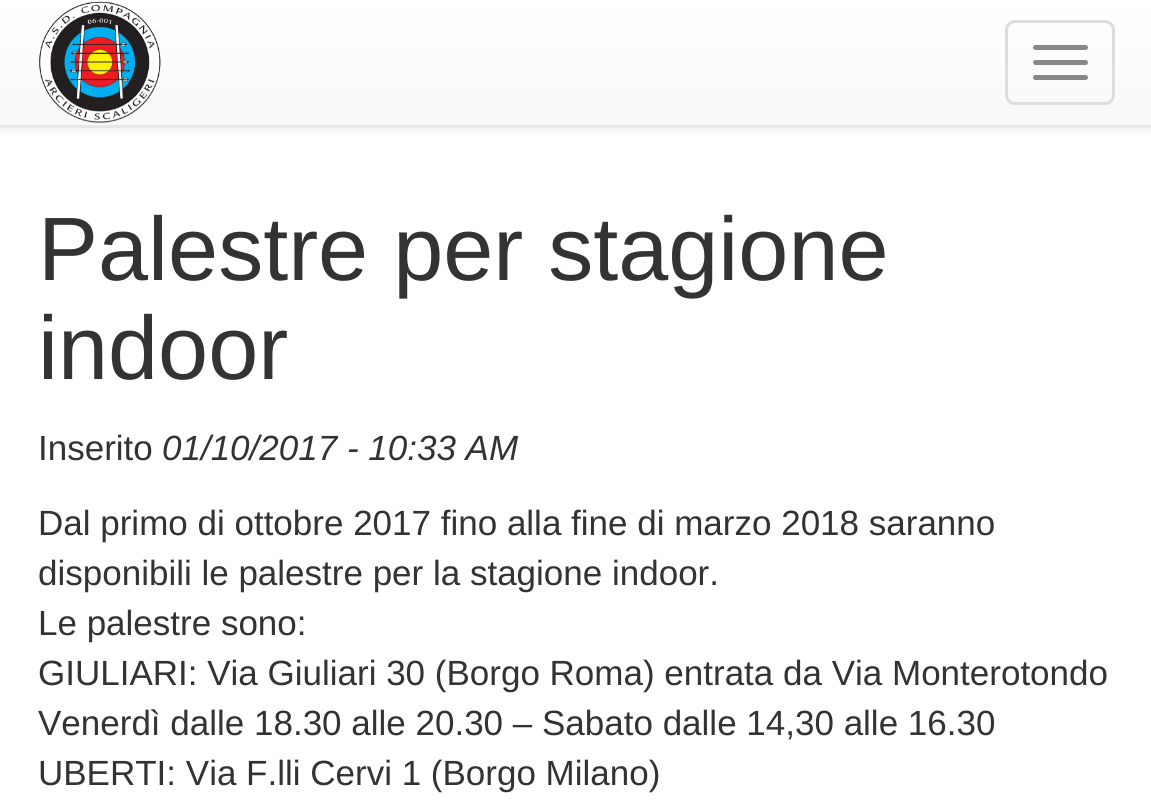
import math
import cairo

surface = cairo.ImageSurface(cairo.FORMAT_RGB24, 1151, 804)
ctx = cairo.Context(surface)
options = cairo.FontOptions()
options.set_hint_metrics(cairo.HINT_METRICS_OFF)
options.set_hint_style(cairo.HINT_STYLE_NONE)
ctx.set_font_options(options)
ctx.set_miter_limit(4)


def set_color(code):
    ctx.set_source_rgb(*(v / 255 for v in bytes.fromhex(code[-6:])))


def draw_text(x, y, s, family, size, color, bold=False, italic=False):
    ctx.select_font_face(family, cairo.FONT_SLANT_ITALIC if italic else cairo.FONT_SLANT_NORMAL, cairo.FONT_WEIGHT_BOLD if bold else cairo.FONT_WEIGHT_NORMAL)
    ctx.set_font_size(size)
    set_color(color)
    ctx.move_to(x, y)
    ctx.show_text(s)


def fill_rect(x, y, w, h, color):
    set_color(color)
    ctx.rectangle(x, y, w, h)
    ctx.fill()


def rounded_rect(x, y, w, h, r):
    ctx.new_sub_path()
    for i, (u, v) in enumerate([(x + w - r, y + h - r), (x + r, y + h - r), (x + r, y + r), (x + w - r, y + r)]):
        ctx.arc(u, v, r, i * math.pi / 2, (i + 1) * math.pi / 2)
    ctx.close_path()


def draw_shadow(x, y, w, h, r, blur, alpha):
    ctx.push_group_with_content(cairo.CONTENT_ALPHA)
    ctx.set_operator(cairo.OPERATOR_SOURCE)
    for i in range(15, -16, -2):
        e = blur * i / 6
        if min(w, h) + 2 * e > 0:
            ctx.set_source_rgba(0, 0, 0, alpha * math.erfc((i - 1) / 8.5) / 2)
            rounded_rect(x - e, y - e, w + 2 * e, h + 2 * e, max(0, min(r + e + blur * .6, min(w, h) / 2 + e)))
            ctx.fill()
    ctx.mask(ctx.pop_group())


def draw_image(path, x, y, w, h):
    ctx.save()
    ctx.set_source_surface(cairo.ImageSurface.create_from_png(path), x, y)
    ctx.rectangle(x, y, w, h)
    ctx.fill()
    ctx.restore()


set_color("#ffffff")
ctx.paint()
set_color("#000000")
draw_shadow(0, 3, 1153, 127, 0, 6, 0.07)
gradient = cairo.LinearGradient(576, 0, 576, 125)
gradient.add_color_stop_rgba(0, 1, 1, 1, 1)
gradient.add_color_stop_rgba(1, 0.973, 0.973, 0.973, 1)
ctx.set_source(gradient)
ctx.rectangle(0, 0, 1151, 125)
ctx.fill()
fill_rect(0, 125, 1151, 3, "#e7e7e7")
draw_image("assets/img1.png", 39, 1, 122, 122)
rounded_rect(1006.5, 21.5, 107, 82, 8.5)
set_color("#dddddd")
ctx.set_line_width(3)
ctx.stroke()
set_color("#888888")
rounded_rect(1033, 45, 55, 5, 2.5)
ctx.fill()
rounded_rect(1033, 60, 55, 5, 2.5)
ctx.fill()
rounded_rect(1033, 75, 55, 5, 2.5)
ctx.fill()
draw_text(38, 280, "Palestre per stagione", "Liberation Sans", 90, "#333333")
draw_text(38, 379, "indoor", "Liberation Sans", 90, "#333333")
draw_text(38, 460, "Inserito", "Liberation Sans", 35, "#333333")
draw_text(162, 460, "01/10/2017 - 10:33 AM", "Liberation Sans", 35, "#333333", italic=True)
draw_text(38, 535, "Dal primo di ottobre 2017 fino alla fine di marzo 2018 saranno", "Liberation Sans", 35, "#333333")
draw_text(38, 585, "disponibili le palestre per la stagione indoor.", "Liberation Sans", 35, "#333333")
draw_text(38, 635, "Le palestre sono:", "Liberation Sans", 35, "#333333")
draw_text(38, 685, "GIULIARI: Via Giuliari 30 (Borgo Roma) entrata da Via Monterotondo", "Liberation Sans", 35, "#333333")
draw_text(38, 735, "Venerdì dalle 18.30 alle 20.30 – Sabato dalle 14,30 alle 16.30", "Liberation Sans", 35, "#333333")
draw_text(38, 785, "UBERTI: Via F.lli Cervi 1 (Borgo Milano)", "Liberation Sans", 35, "#333333")
surface.write_to_png("output.png")
